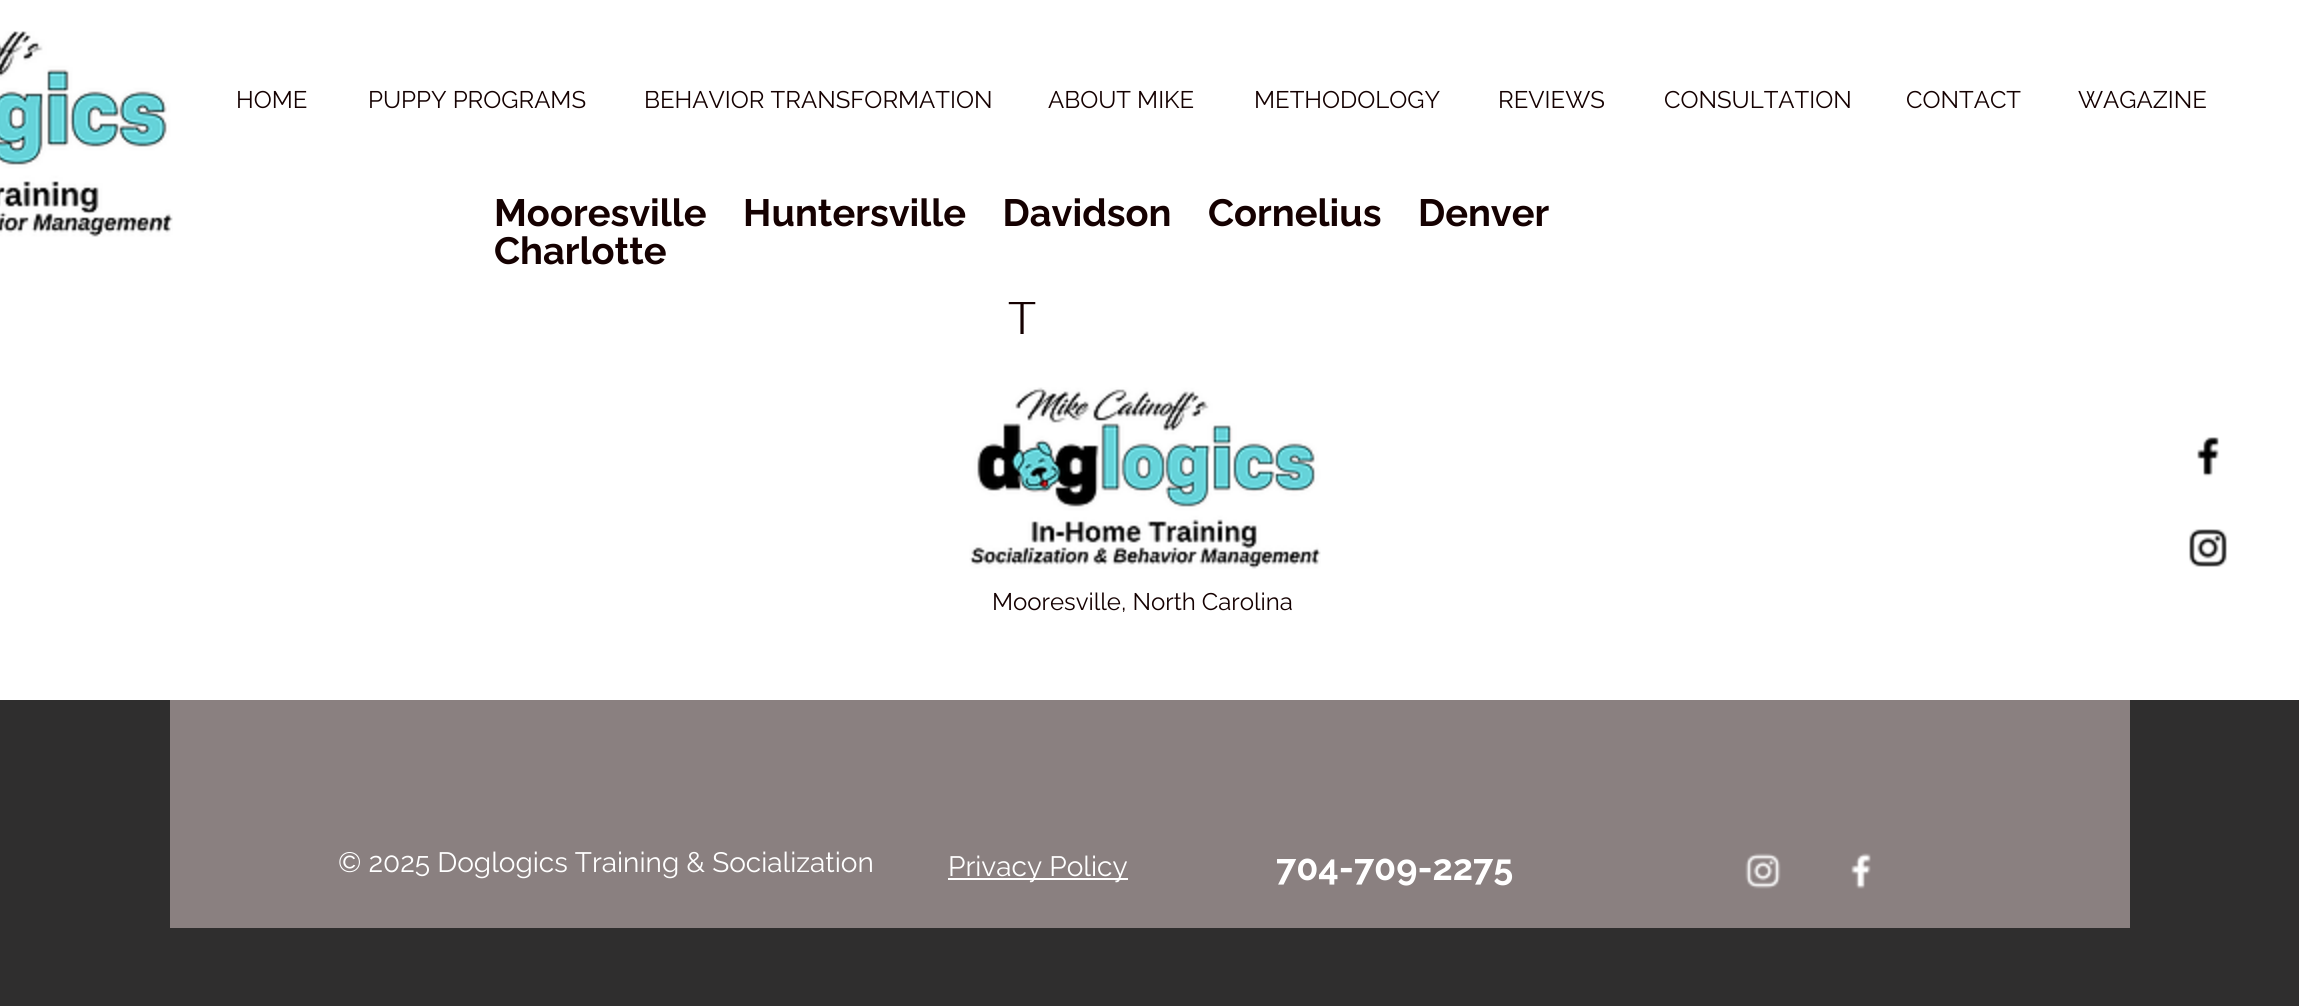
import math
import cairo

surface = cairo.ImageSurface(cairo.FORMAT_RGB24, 2299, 1006)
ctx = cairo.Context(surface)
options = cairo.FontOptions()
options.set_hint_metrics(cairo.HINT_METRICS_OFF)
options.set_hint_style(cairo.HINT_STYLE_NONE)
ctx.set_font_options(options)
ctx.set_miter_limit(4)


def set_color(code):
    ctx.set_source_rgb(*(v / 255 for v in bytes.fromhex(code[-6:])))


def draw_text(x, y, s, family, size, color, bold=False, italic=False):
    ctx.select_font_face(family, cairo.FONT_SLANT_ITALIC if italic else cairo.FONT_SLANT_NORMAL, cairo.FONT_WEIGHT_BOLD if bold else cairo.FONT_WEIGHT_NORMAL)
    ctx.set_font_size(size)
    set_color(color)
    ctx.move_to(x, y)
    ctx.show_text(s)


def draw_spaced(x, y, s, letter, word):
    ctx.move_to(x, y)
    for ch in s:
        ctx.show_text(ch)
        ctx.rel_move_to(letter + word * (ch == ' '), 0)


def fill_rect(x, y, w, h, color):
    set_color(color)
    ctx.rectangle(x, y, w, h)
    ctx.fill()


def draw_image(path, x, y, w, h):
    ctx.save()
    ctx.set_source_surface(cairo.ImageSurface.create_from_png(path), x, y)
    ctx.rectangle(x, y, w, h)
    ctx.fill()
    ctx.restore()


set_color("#ffffff")
ctx.paint()
draw_image("assets/img1.png", 0, 31, 173, 206)
draw_text(236, 108, "HOME", "Raleway", 24, "#150101")
draw_text(368, 108, "PUPPY PROGRAMS", "Raleway", 24, "#150101")
draw_text(644, 108, "BEHAVIOR TRANSFORMATION", "Raleway", 24, "#150101")
draw_text(1048, 108, "ABOUT MIKE", "Raleway", 24, "#150101")
draw_text(1254, 108, "METHODOLOGY", "Raleway", 24, "#150101")
draw_text(1498, 108, "REVIEWS", "Raleway", 24, "#150101")
draw_text(1664, 108, "CONSULTATION", "Raleway", 24, "#150101")
draw_text(1906, 108, "CONTACT", "Raleway", 24, "#150101")
draw_text(2078, 108, "WAGAZINE", "Raleway", 24, "#150101")
draw_text(494, 226, "Mooresville    Huntersville    Davidson    Cornelius    Denver", "Raleway", 38, "#150101", bold=True)
draw_text(494, 264, "Charlotte", "Raleway", 38, "#150101", bold=True)
ctx.select_font_face("Raleway")
ctx.set_font_size(46)
draw_spaced(1008, 334, "T", 9, 0)
fill_rect(1008, 301, 28, 1, "#ffffff")
draw_image("assets/img2.png", 969, 387, 352, 182)
draw_text(992, 610, "Mooresville, North Carolina", "Raleway", 24, "#150101")
draw_image("assets/img3.png", 2197, 437, 22, 40)
draw_image("assets/img4.png", 2189, 529, 38, 38)
fill_rect(0, 700, 2299, 306, "#2f2e2e")
fill_rect(170, 700, 1960, 228, "#8a8080")
draw_text(338, 872, "© 2025 Doglogics Training & Socialization", "Raleway", 28, "#ffffff")
fill_rect(948, 878, 180, 2, "#ffffff")
draw_text(948, 876, "Privacy Policy", "Raleway", 28, "#ffffff")
draw_text(1276, 880, "704-709-2275", "Raleway", 36, "#ffffff", bold=True)
draw_image("assets/img5.png", 1745, 853, 36, 36)
draw_image("assets/img6.png", 1851, 853, 20, 36)
surface.write_to_png("output.png")
